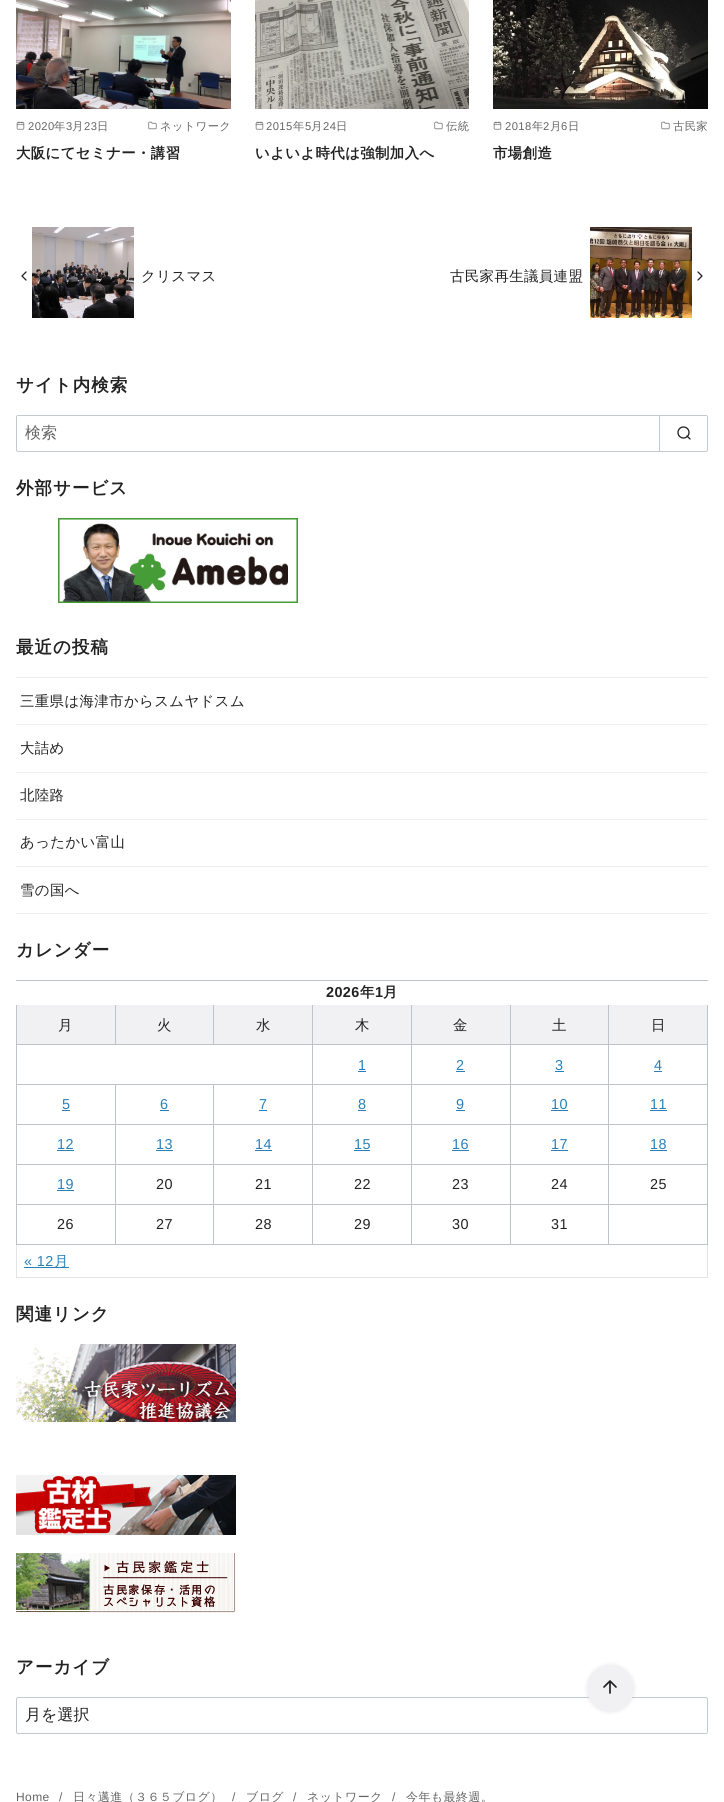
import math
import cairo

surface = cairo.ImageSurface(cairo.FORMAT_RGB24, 724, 1802)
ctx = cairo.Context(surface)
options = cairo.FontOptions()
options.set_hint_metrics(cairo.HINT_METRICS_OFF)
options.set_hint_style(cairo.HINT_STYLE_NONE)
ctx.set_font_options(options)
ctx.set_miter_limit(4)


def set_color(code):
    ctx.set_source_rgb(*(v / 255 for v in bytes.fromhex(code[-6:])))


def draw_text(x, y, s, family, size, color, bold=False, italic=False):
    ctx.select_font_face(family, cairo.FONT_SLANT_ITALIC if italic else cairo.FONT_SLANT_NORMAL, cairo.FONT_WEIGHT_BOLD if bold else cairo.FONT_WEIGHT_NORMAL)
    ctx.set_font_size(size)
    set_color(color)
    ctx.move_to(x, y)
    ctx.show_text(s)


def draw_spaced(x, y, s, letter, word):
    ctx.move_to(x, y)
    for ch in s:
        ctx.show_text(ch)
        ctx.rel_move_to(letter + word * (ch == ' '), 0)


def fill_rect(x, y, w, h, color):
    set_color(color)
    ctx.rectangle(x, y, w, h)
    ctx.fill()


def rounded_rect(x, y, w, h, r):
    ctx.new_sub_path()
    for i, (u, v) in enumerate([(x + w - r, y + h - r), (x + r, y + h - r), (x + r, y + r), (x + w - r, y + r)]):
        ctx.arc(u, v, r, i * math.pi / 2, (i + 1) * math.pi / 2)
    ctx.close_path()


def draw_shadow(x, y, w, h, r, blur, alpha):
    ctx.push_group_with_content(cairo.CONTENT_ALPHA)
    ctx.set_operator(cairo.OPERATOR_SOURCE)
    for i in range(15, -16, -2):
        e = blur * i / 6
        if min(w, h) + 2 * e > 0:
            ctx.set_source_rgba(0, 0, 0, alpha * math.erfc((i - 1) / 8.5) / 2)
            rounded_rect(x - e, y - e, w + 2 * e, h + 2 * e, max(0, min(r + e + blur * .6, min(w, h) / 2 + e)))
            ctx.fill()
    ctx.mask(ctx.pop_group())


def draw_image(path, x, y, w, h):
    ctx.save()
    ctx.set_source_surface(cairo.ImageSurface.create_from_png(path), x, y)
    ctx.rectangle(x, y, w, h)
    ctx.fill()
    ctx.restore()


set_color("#ffffff")
ctx.paint()
draw_image("assets/img1.png", 16, 0, 215, 109)
draw_image("assets/img2.png", 16, 121, 9, 9)
ctx.select_font_face("Liberation Sans")
ctx.set_font_size(11.25)
set_color("#656565")
draw_spaced(28, 130, "2020", 0.4, 0)
ctx.select_font_face("WenQuanYi Zen Hei Medium")
draw_spaced(54, 130, "年", 0.4, 0)
ctx.select_font_face("Liberation Sans")
draw_spaced(66, 130, "3", 0.4, 0)
ctx.select_font_face("WenQuanYi Zen Hei Medium")
draw_spaced(72, 130, "月", 0.4, 0)
ctx.select_font_face("Liberation Sans")
draw_spaced(84, 130, "23", 0.4, 0)
ctx.select_font_face("WenQuanYi Zen Hei Medium")
draw_spaced(97, 130, "日", 0.4, 0)
draw_image("assets/img3.png", 148, 121, 9, 9)
draw_spaced(160, 130, "ネットワーク", 0.4, 0)
ctx.select_font_face("WenQuanYi Zen Hei", cairo.FONT_SLANT_NORMAL, cairo.FONT_WEIGHT_BOLD)
ctx.set_font_size(14.4)
set_color("#222222")
draw_spaced(16, 158, "大阪にてセミナー・講習", 0.4, 0)
draw_image("assets/img4.png", 255, 0, 214, 109)
draw_image("assets/img2.png", 255, 121, 9, 9)
ctx.select_font_face("Liberation Sans")
ctx.set_font_size(11.25)
set_color("#656565")
draw_spaced(266, 130, "2015", 0.4, 0)
ctx.select_font_face("WenQuanYi Zen Hei Medium")
draw_spaced(293, 130, "年", 0.4, 0)
ctx.select_font_face("Liberation Sans")
draw_spaced(305, 130, "5", 0.4, 0)
ctx.select_font_face("WenQuanYi Zen Hei Medium")
draw_spaced(311, 130, "月", 0.4, 0)
ctx.select_font_face("Liberation Sans")
draw_spaced(323, 130, "24", 0.4, 0)
ctx.select_font_face("WenQuanYi Zen Hei Medium")
draw_spaced(336, 130, "日", 0.4, 0)
draw_image("assets/img3.png", 434, 121, 9, 9)
draw_spaced(446, 130, "伝統", 0.4, 0)
ctx.select_font_face("WenQuanYi Zen Hei", cairo.FONT_SLANT_NORMAL, cairo.FONT_WEIGHT_BOLD)
ctx.set_font_size(14.4)
set_color("#222222")
draw_spaced(255, 158, "いよいよ時代は強制加入へ", 0.4, 0)
draw_image("assets/img5.png", 493, 0, 215, 109)
draw_image("assets/img2.png", 493, 121, 9, 9)
ctx.select_font_face("Liberation Sans")
ctx.set_font_size(11.25)
set_color("#656565")
draw_spaced(505, 130, "2018", 0.4, 0)
ctx.select_font_face("WenQuanYi Zen Hei Medium")
draw_spaced(532, 130, "年", 0.4, 0)
ctx.select_font_face("Liberation Sans")
draw_spaced(543, 130, "2", 0.4, 0)
ctx.select_font_face("WenQuanYi Zen Hei Medium")
draw_spaced(550, 130, "月", 0.4, 0)
ctx.select_font_face("Liberation Sans")
draw_spaced(561, 130, "6", 0.4, 0)
ctx.select_font_face("WenQuanYi Zen Hei Medium")
draw_spaced(568, 130, "日", 0.4, 0)
draw_image("assets/img3.png", 661, 121, 9, 9)
draw_spaced(673, 130, "古民家", 0.4, 0)
ctx.select_font_face("WenQuanYi Zen Hei", cairo.FONT_SLANT_NORMAL, cairo.FONT_WEIGHT_BOLD)
ctx.set_font_size(14.4)
set_color("#222222")
draw_spaced(493, 158, "市場創造", 0.4, 0)
ctx.new_path()
ctx.move_to(26, 280)
ctx.line_to(22, 276)
ctx.line_to(26, 272)
ctx.set_line_width(1.3)
ctx.set_line_cap(cairo.LINE_CAP_ROUND)
ctx.set_line_join(cairo.LINE_JOIN_ROUND)
ctx.stroke()
draw_image("assets/img6.png", 32, 227, 102, 91)
ctx.select_font_face("WenQuanYi Zen Hei Medium")
draw_spaced(141, 281, "クリスマス", 0.4, 0)
draw_spaced(450, 281, "古民家再生議員連盟", 0.4, 0)
draw_image("assets/img7.png", 590, 227, 102, 91)
ctx.new_path()
ctx.move_to(698, 280)
ctx.line_to(702, 276)
ctx.line_to(698, 272)
ctx.stroke()
ctx.select_font_face("WenQuanYi Zen Hei", cairo.FONT_SLANT_NORMAL, cairo.FONT_WEIGHT_BOLD)
ctx.set_font_size(17.5)
draw_spaced(16, 391, "サイト内検索", 1, 0)
rounded_rect(16.5, 415.5, 691, 36, 1.5)
set_color("#c4c9cd")
ctx.set_line_width(1)
ctx.set_line_cap(cairo.LINE_CAP_BUTT)
ctx.set_line_join(cairo.LINE_JOIN_MITER)
ctx.stroke()
draw_text(25, 438, "検索", "WenQuanYi Zen Hei Medium", 16, "#656565")
ctx.set_source_rgba(0.741, 0.765, 0.78, 0.9)
ctx.rectangle(659, 415, 1, 37)
ctx.fill()
ctx.arc(683.5, 432.5, 5.5, 0, 2 * math.pi)
set_color("#222222")
ctx.set_line_width(1.3)
ctx.stroke()
ctx.new_path()
ctx.move_to(690, 439)
ctx.line_to(687, 436)
ctx.set_line_cap(cairo.LINE_CAP_ROUND)
ctx.set_line_join(cairo.LINE_JOIN_ROUND)
ctx.stroke()
ctx.select_font_face("WenQuanYi Zen Hei", cairo.FONT_SLANT_NORMAL, cairo.FONT_WEIGHT_BOLD)
ctx.set_font_size(17.5)
draw_spaced(16, 494, "外部サービス", 1, 0)
draw_image("assets/img8.png", 58, 518, 240, 85)
draw_spaced(16, 653, "最近の投稿", 1, 0)
fill_rect(16, 677, 692, 1, "#eeeeee")
fill_rect(16, 724, 692, 1, "#eeeeee")
ctx.select_font_face("WenQuanYi Zen Hei Medium")
ctx.set_font_size(14.4)
set_color("#222222")
draw_spaced(20, 706, "三重県は海津市からスムヤドスム", 0.4, 0)
fill_rect(16, 772, 692, 1, "#eeeeee")
set_color("#222222")
draw_spaced(20, 753, "大詰め", 0.4, 0)
fill_rect(16, 819, 692, 1, "#eeeeee")
set_color("#222222")
draw_spaced(20, 800, "北陸路", 0.4, 0)
fill_rect(16, 866, 692, 1, "#eeeeee")
set_color("#222222")
draw_spaced(20, 847, "あったかい富山", 0.4, 0)
fill_rect(16, 913, 692, 1, "#eeeeee")
set_color("#222222")
draw_spaced(20, 895, "雪の国へ", 0.4, 0)
ctx.select_font_face("WenQuanYi Zen Hei", cairo.FONT_SLANT_NORMAL, cairo.FONT_WEIGHT_BOLD)
ctx.set_font_size(17.5)
draw_spaced(16, 956, "カレンダー", 1, 0)
fill_rect(16, 980, 692, 1, "#bdc3c7")
ctx.select_font_face("Liberation Sans", cairo.FONT_SLANT_NORMAL, cairo.FONT_WEIGHT_BOLD)
ctx.set_font_size(14.4)
set_color("#222222")
draw_spaced(326, 997, "2026", 0.4, 0)
ctx.select_font_face("WenQuanYi Zen Hei", cairo.FONT_SLANT_NORMAL, cairo.FONT_WEIGHT_BOLD)
draw_spaced(360, 997, "年", 0.4, 0)
ctx.select_font_face("Liberation Sans", cairo.FONT_SLANT_NORMAL, cairo.FONT_WEIGHT_BOLD)
draw_spaced(375, 997, "1", 0.4, 0)
ctx.select_font_face("WenQuanYi Zen Hei", cairo.FONT_SLANT_NORMAL, cairo.FONT_WEIGHT_BOLD)
draw_spaced(383, 997, "月", 0.4, 0)
fill_rect(17, 1005, 98, 39, "#f1f1f3")
fill_rect(707, 1005, 1, 240, "#bdc3c7")
fill_rect(608, 1244, 100, 1, "#bdc3c7")
fill_rect(608, 1204, 1, 41, "#bdc3c7")
fill_rect(608, 1204, 100, 1, "#bdc3c7")
fill_rect(608, 1164, 1, 41, "#bdc3c7")
fill_rect(608, 1164, 100, 1, "#bdc3c7")
fill_rect(608, 1124, 1, 41, "#bdc3c7")
fill_rect(608, 1124, 100, 1, "#bdc3c7")
fill_rect(608, 1084, 1, 41, "#bdc3c7")
fill_rect(608, 1084, 100, 1, "#bdc3c7")
fill_rect(608, 1044, 1, 41, "#bdc3c7")
fill_rect(608, 1044, 100, 1, "#bdc3c7")
fill_rect(608, 1005, 1, 40, "#bdc3c7")
fill_rect(510, 1244, 99, 1, "#bdc3c7")
fill_rect(510, 1204, 1, 41, "#bdc3c7")
fill_rect(510, 1204, 99, 1, "#bdc3c7")
fill_rect(510, 1164, 1, 41, "#bdc3c7")
fill_rect(510, 1164, 99, 1, "#bdc3c7")
fill_rect(510, 1124, 1, 41, "#bdc3c7")
fill_rect(510, 1124, 99, 1, "#bdc3c7")
fill_rect(510, 1084, 1, 41, "#bdc3c7")
fill_rect(510, 1084, 99, 1, "#bdc3c7")
fill_rect(510, 1044, 1, 41, "#bdc3c7")
fill_rect(510, 1044, 99, 1, "#bdc3c7")
fill_rect(510, 1005, 1, 40, "#bdc3c7")
fill_rect(411, 1244, 100, 1, "#bdc3c7")
fill_rect(411, 1204, 1, 41, "#bdc3c7")
fill_rect(411, 1204, 100, 1, "#bdc3c7")
fill_rect(411, 1164, 1, 41, "#bdc3c7")
fill_rect(411, 1164, 100, 1, "#bdc3c7")
fill_rect(411, 1124, 1, 41, "#bdc3c7")
fill_rect(411, 1124, 100, 1, "#bdc3c7")
fill_rect(411, 1084, 1, 41, "#bdc3c7")
fill_rect(411, 1084, 100, 1, "#bdc3c7")
fill_rect(411, 1044, 1, 41, "#bdc3c7")
fill_rect(411, 1044, 100, 1, "#bdc3c7")
fill_rect(411, 1005, 1, 40, "#bdc3c7")
fill_rect(312, 1244, 100, 1, "#bdc3c7")
fill_rect(312, 1204, 1, 41, "#bdc3c7")
fill_rect(312, 1204, 100, 1, "#bdc3c7")
fill_rect(312, 1164, 1, 41, "#bdc3c7")
fill_rect(312, 1164, 100, 1, "#bdc3c7")
fill_rect(312, 1124, 1, 41, "#bdc3c7")
fill_rect(312, 1124, 100, 1, "#bdc3c7")
fill_rect(312, 1084, 1, 41, "#bdc3c7")
fill_rect(312, 1084, 100, 1, "#bdc3c7")
fill_rect(312, 1044, 1, 41, "#bdc3c7")
fill_rect(312, 1044, 100, 1, "#bdc3c7")
fill_rect(312, 1005, 1, 40, "#bdc3c7")
fill_rect(213, 1044, 100, 1, "#bdc3c7")
fill_rect(213, 1005, 1, 40, "#bdc3c7")
fill_rect(115, 1044, 99, 1, "#bdc3c7")
fill_rect(115, 1005, 1, 40, "#bdc3c7")
fill_rect(16, 1005, 1, 240, "#bdc3c7")
fill_rect(16, 1044, 100, 1, "#bdc3c7")
ctx.select_font_face("WenQuanYi Zen Hei Medium")
set_color("#222222")
draw_spaced(58, 1030, "月", 0.4, 0)
fill_rect(116, 1005, 97, 39, "#f1f1f3")
set_color("#222222")
draw_spaced(157, 1030, "火", 0.4, 0)
fill_rect(214, 1005, 98, 39, "#f1f1f3")
set_color("#222222")
draw_spaced(256, 1030, "水", 0.4, 0)
fill_rect(313, 1005, 98, 39, "#f1f1f3")
set_color("#222222")
draw_spaced(355, 1030, "木", 0.4, 0)
fill_rect(412, 1005, 98, 39, "#f1f1f3")
set_color("#222222")
draw_spaced(453, 1030, "金", 0.4, 0)
fill_rect(511, 1005, 97, 39, "#f1f1f3")
set_color("#222222")
draw_spaced(552, 1030, "土", 0.4, 0)
fill_rect(609, 1005, 98, 39, "#f1f1f3")
set_color("#222222")
draw_spaced(651, 1030, "日", 0.4, 0)
fill_rect(213, 1244, 100, 1, "#bdc3c7")
fill_rect(213, 1204, 1, 41, "#bdc3c7")
fill_rect(213, 1204, 100, 1, "#bdc3c7")
fill_rect(213, 1164, 1, 41, "#bdc3c7")
fill_rect(213, 1164, 100, 1, "#bdc3c7")
fill_rect(213, 1124, 1, 41, "#bdc3c7")
fill_rect(213, 1124, 100, 1, "#bdc3c7")
fill_rect(213, 1084, 1, 41, "#bdc3c7")
fill_rect(115, 1244, 99, 1, "#bdc3c7")
fill_rect(115, 1204, 1, 41, "#bdc3c7")
fill_rect(115, 1204, 99, 1, "#bdc3c7")
fill_rect(115, 1164, 1, 41, "#bdc3c7")
fill_rect(115, 1164, 99, 1, "#bdc3c7")
fill_rect(115, 1124, 1, 41, "#bdc3c7")
fill_rect(115, 1124, 99, 1, "#bdc3c7")
fill_rect(115, 1084, 1, 41, "#bdc3c7")
fill_rect(16, 1084, 297, 1, "#bdc3c7")
ctx.select_font_face("Liberation Sans")
set_color("#2980b9")
draw_spaced(358, 1070, "1", 0.4, 0)
fill_rect(358, 1071, 8, 1, "#2980b9")
draw_spaced(456, 1070, "2", 0.4, 0)
fill_rect(456, 1071, 9, 1, "#2980b9")
draw_spaced(555, 1070, "3", 0.4, 0)
fill_rect(555, 1071, 9, 1, "#2980b9")
draw_spaced(654, 1070, "4", 0.4, 0)
fill_rect(654, 1071, 8, 1, "#2980b9")
fill_rect(16, 1124, 100, 1, "#bdc3c7")
set_color("#2980b9")
draw_spaced(62, 1109, "5", 0.4, 0)
fill_rect(62, 1110, 8, 1, "#2980b9")
draw_spaced(160, 1109, "6", 0.4, 0)
fill_rect(160, 1110, 9, 1, "#2980b9")
draw_spaced(259, 1109, "7", 0.4, 0)
fill_rect(259, 1110, 8, 1, "#2980b9")
draw_spaced(358, 1109, "8", 0.4, 0)
fill_rect(358, 1110, 8, 1, "#2980b9")
draw_spaced(456, 1109, "9", 0.4, 0)
fill_rect(456, 1110, 9, 1, "#2980b9")
draw_spaced(551, 1109, "10", 0.4, 0)
fill_rect(551, 1110, 17, 1, "#2980b9")
draw_spaced(650, 1109, "11", 0.4, 0)
fill_rect(650, 1110, 17, 1, "#2980b9")
fill_rect(16, 1164, 100, 1, "#bdc3c7")
set_color("#2980b9")
draw_spaced(57, 1149, "12", 0.4, 0)
fill_rect(57, 1150, 17, 1, "#2980b9")
draw_spaced(156, 1149, "13", 0.4, 0)
fill_rect(156, 1150, 17, 1, "#2980b9")
draw_spaced(255, 1149, "14", 0.4, 0)
fill_rect(255, 1150, 17, 1, "#2980b9")
draw_spaced(354, 1149, "15", 0.4, 0)
fill_rect(354, 1150, 16, 1, "#2980b9")
draw_spaced(452, 1149, "16", 0.4, 0)
fill_rect(452, 1150, 17, 1, "#2980b9")
draw_spaced(551, 1149, "17", 0.4, 0)
fill_rect(551, 1150, 17, 1, "#2980b9")
draw_spaced(650, 1149, "18", 0.4, 0)
fill_rect(650, 1150, 17, 1, "#2980b9")
fill_rect(16, 1204, 100, 1, "#bdc3c7")
set_color("#2980b9")
draw_spaced(57, 1189, "19", 0.4, 0)
fill_rect(57, 1190, 17, 1, "#2980b9")
set_color("#222222")
draw_spaced(156, 1189, "20", 0.4, 0)
draw_spaced(255, 1189, "21", 0.4, 0)
draw_spaced(354, 1189, "22", 0.4, 0)
draw_spaced(452, 1189, "23", 0.4, 0)
draw_spaced(551, 1189, "24", 0.4, 0)
draw_spaced(650, 1189, "25", 0.4, 0)
fill_rect(16, 1244, 100, 1, "#bdc3c7")
set_color("#222222")
draw_spaced(57, 1229, "26", 0.4, 0)
draw_spaced(156, 1229, "27", 0.4, 0)
draw_spaced(255, 1229, "28", 0.4, 0)
draw_spaced(354, 1229, "29", 0.4, 0)
draw_spaced(452, 1229, "30", 0.4, 0)
draw_spaced(551, 1229, "31", 0.4, 0)
fill_rect(707, 1245, 1, 33, "#e2e4e7")
fill_rect(16, 1277, 692, 1, "#e2e4e7")
fill_rect(16, 1245, 1, 33, "#e2e4e7")
set_color("#2980b9")
draw_spaced(24, 1266, "« 12", 0.4, 0)
fill_rect(24, 1267, 45, 1, "#2980b9")
ctx.select_font_face("WenQuanYi Zen Hei Medium")
draw_spaced(54, 1266, "月", 0.4, 0)
ctx.select_font_face("WenQuanYi Zen Hei", cairo.FONT_SLANT_NORMAL, cairo.FONT_WEIGHT_BOLD)
ctx.set_font_size(17.5)
set_color("#222222")
draw_spaced(16, 1320, "関連リンク", 1, 0)
draw_image("assets/img9.png", 16, 1344, 220, 78)
draw_image("assets/img10.png", 16, 1475, 220, 60)
draw_image("assets/img11.png", 16, 1553, 220, 60)
draw_spaced(16, 1673, "アーカイブ", 1, 0)
rounded_rect(16.5, 1697.5, 691, 36, 1.5)
set_color("#c4c9cd")
ctx.set_line_width(1)
ctx.set_line_cap(cairo.LINE_CAP_BUTT)
ctx.set_line_join(cairo.LINE_JOIN_MITER)
ctx.stroke()
draw_text(25, 1720, "月を選択", "WenQuanYi Zen Hei Medium", 16, "#222222")
set_color("#000000")
draw_shadow(587, 1665, 47, 47, 23.5, 2, 0.1)
set_color("#f1f1f3")
ctx.arc(610.5, 1688.5, 23.5, 0, 2 * math.pi)
ctx.fill()
ctx.new_path()
ctx.move_to(610, 1693)
ctx.line_to(610, 1681)
ctx.move_to(604, 1687)
ctx.line_to(610, 1681)
ctx.line_to(616, 1687)
set_color("#222222")
ctx.set_line_width(1.7)
ctx.set_line_cap(cairo.LINE_CAP_ROUND)
ctx.set_line_join(cairo.LINE_JOIN_ROUND)
ctx.stroke()
ctx.select_font_face("Liberation Sans")
ctx.set_font_size(12)
set_color("#656565")
draw_spaced(16, 1801, "Home", 0.4, 0)
draw_spaced(59, 1801, "/", 0.4, 0)
ctx.select_font_face("WenQuanYi Zen Hei Medium")
draw_spaced(73, 1801, "日々邁進（３６５ブログ）", 0.4, 0)
ctx.select_font_face("Liberation Sans")
draw_spaced(232, 1801, "/", 0.4, 0)
ctx.select_font_face("WenQuanYi Zen Hei Medium")
draw_spaced(246, 1801, "ブログ", 0.4, 0)
ctx.select_font_face("Liberation Sans")
draw_spaced(293, 1801, "/", 0.4, 0)
ctx.select_font_face("WenQuanYi Zen Hei Medium")
draw_spaced(307, 1801, "ネットワーク", 0.4, 0)
ctx.select_font_face("Liberation Sans")
draw_spaced(392, 1801, "/", 0.4, 0)
ctx.select_font_face("WenQuanYi Zen Hei Medium")
draw_spaced(406, 1801, "今年も最終週。", 0.4, 0)
surface.write_to_png("output.png")
